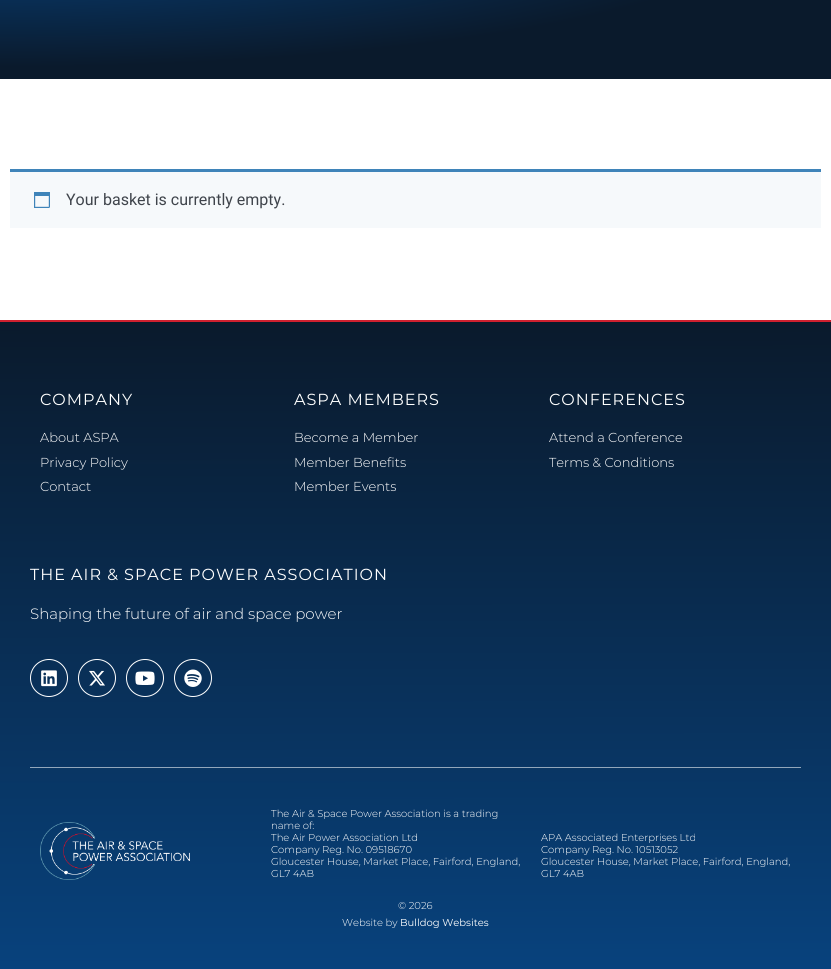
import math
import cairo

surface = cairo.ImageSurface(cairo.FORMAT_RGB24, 831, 969)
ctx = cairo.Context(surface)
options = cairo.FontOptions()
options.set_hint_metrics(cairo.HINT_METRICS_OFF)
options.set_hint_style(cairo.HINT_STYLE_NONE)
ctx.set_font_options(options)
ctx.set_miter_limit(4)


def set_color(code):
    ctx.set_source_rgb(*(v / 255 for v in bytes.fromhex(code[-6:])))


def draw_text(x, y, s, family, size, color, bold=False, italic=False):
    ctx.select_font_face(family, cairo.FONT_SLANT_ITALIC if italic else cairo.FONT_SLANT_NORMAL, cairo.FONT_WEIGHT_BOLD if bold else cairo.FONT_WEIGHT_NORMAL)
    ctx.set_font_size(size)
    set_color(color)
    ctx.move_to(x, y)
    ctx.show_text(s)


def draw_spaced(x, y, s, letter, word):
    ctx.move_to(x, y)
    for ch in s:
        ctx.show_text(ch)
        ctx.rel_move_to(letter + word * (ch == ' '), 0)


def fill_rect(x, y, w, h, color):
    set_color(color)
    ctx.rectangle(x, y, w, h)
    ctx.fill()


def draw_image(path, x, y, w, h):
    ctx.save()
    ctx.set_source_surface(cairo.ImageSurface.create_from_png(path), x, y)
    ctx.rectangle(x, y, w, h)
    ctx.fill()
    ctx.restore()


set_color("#ffffff")
ctx.paint()
gradient = cairo.RadialGradient(0, 0, 0, 0, 0, 1)
gradient.set_matrix(cairo.Matrix(1 / 1175, 0, 0, 1 / 212, -1 * 0 / 1175, -1 * -71 / 212))
gradient.add_color_stop_rgba(0, 0.031, 0.259, 0.49, 1)
gradient.add_color_stop_rgba(0.65, 0.039, 0.102, 0.173, 1)
ctx.set_source(gradient)
ctx.rectangle(0, 0, 831, 79)
ctx.fill()
fill_rect(10, 172, 811, 56, "#f6f9fb")
fill_rect(10, 169, 811, 3, "#3f84b9")
draw_image("assets/img1.png", 34, 192, 16, 16)
draw_text(66, 205, "Your basket is currently empty.", "Roboto", 16, "#3f444b")
gradient = cairo.LinearGradient(416, 969, 415, 322)
gradient.add_color_stop_rgba(0, 0.031, 0.259, 0.49, 1)
gradient.add_color_stop_rgba(1, 0.039, 0.102, 0.173, 1)
ctx.set_source(gradient)
ctx.rectangle(0, 322, 831, 647)
ctx.fill()
fill_rect(0, 320, 831, 2, "#d0202f")
ctx.select_font_face("Montserrat")
set_color("#ffffff")
draw_spaced(40, 405, "COMPANY", 1, 0)
draw_text(40, 442, "About ASPA", "Montserrat Light", 13, "#ffffff")
draw_text(40, 467, "Privacy Policy", "Montserrat Light", 13, "#ffffff")
draw_text(40, 491, "Contact", "Montserrat Light", 13, "#ffffff")
ctx.select_font_face("Montserrat")
ctx.set_font_size(16)
draw_spaced(294, 405, "ASPA MEMBERS", 1, 0)
draw_text(294, 442, "Become a Member", "Montserrat Light", 13, "#ffffff")
draw_text(294, 467, "Member Benefits", "Montserrat Light", 13, "#ffffff")
draw_text(294, 491, "Member Events", "Montserrat Light", 13, "#ffffff")
ctx.select_font_face("Montserrat")
ctx.set_font_size(16)
draw_spaced(549, 405, "CONFERENCES", 1, 0)
draw_text(549, 442, "Attend a Conference", "Montserrat Light", 13, "#ffffff")
draw_text(549, 467, "Terms & Conditions", "Montserrat Light", 13, "#ffffff")
ctx.select_font_face("Montserrat")
ctx.set_font_size(16)
draw_spaced(30, 580, "THE AIR & SPACE POWER ASSOCIATION", 1, 0)
draw_text(30, 619, "Shaping the future of air and space power", "Montserrat Light", 15, "#ffffff")
ctx.new_path()
ctx.arc(49, 678, 18.5, 0, 2 * math.pi)
ctx.set_line_width(1)
ctx.stroke()
draw_image("assets/img2.png", 41, 670, 16, 17)
ctx.arc(97, 678, 18.5, 0, 2 * math.pi)
ctx.stroke()
draw_image("assets/img3.png", 89, 670, 16, 16)
ctx.arc(145, 678, 18.5, 0, 2 * math.pi)
ctx.stroke()
draw_image("assets/img4.png", 135, 671, 20, 14)
ctx.arc(193, 678, 18.5, 0, 2 * math.pi)
ctx.stroke()
draw_image("assets/img5.png", 184, 669, 18, 18)
fill_rect(30, 767, 771, 1, "#93a7bb")
draw_image("assets/img6.png", 40, 822, 150, 58)
draw_text(271, 817, "The Air & Space Power Association is a trading", "Montserrat Light", 10, "#ffffff")
draw_text(271, 829, "name of:", "Montserrat Light", 10, "#ffffff")
draw_text(271, 841, "The Air Power Association Ltd", "Montserrat Light", 10, "#ffffff")
draw_text(271, 853, "Company Reg. No. 09518670", "Montserrat Light", 10, "#ffffff")
draw_text(271, 865, "Gloucester House, Market Place, Fairford, England,", "Montserrat Light", 10, "#ffffff")
draw_text(271, 877, "GL7 4AB", "Montserrat Light", 10, "#ffffff")
draw_text(541, 841, "APA Associated Enterprises Ltd", "Montserrat Light", 10, "#ffffff")
draw_text(541, 853, "Company Reg. No. 10513052", "Montserrat Light", 10, "#ffffff")
draw_text(541, 865, "Gloucester House, Market Place, Fairford, England,", "Montserrat Light", 10, "#ffffff")
draw_text(541, 877, "GL7 4AB", "Montserrat Light", 10, "#ffffff")
draw_text(398, 909, "© 2026", "Montserrat Light", 10, "#ffffff")
draw_text(342, 926, "Website by", "Montserrat Light", 10, "#ffffff")
draw_text(400, 926, "Bulldog Websites", "Montserrat", 10, "#ffffff")
surface.write_to_png("output.png")
